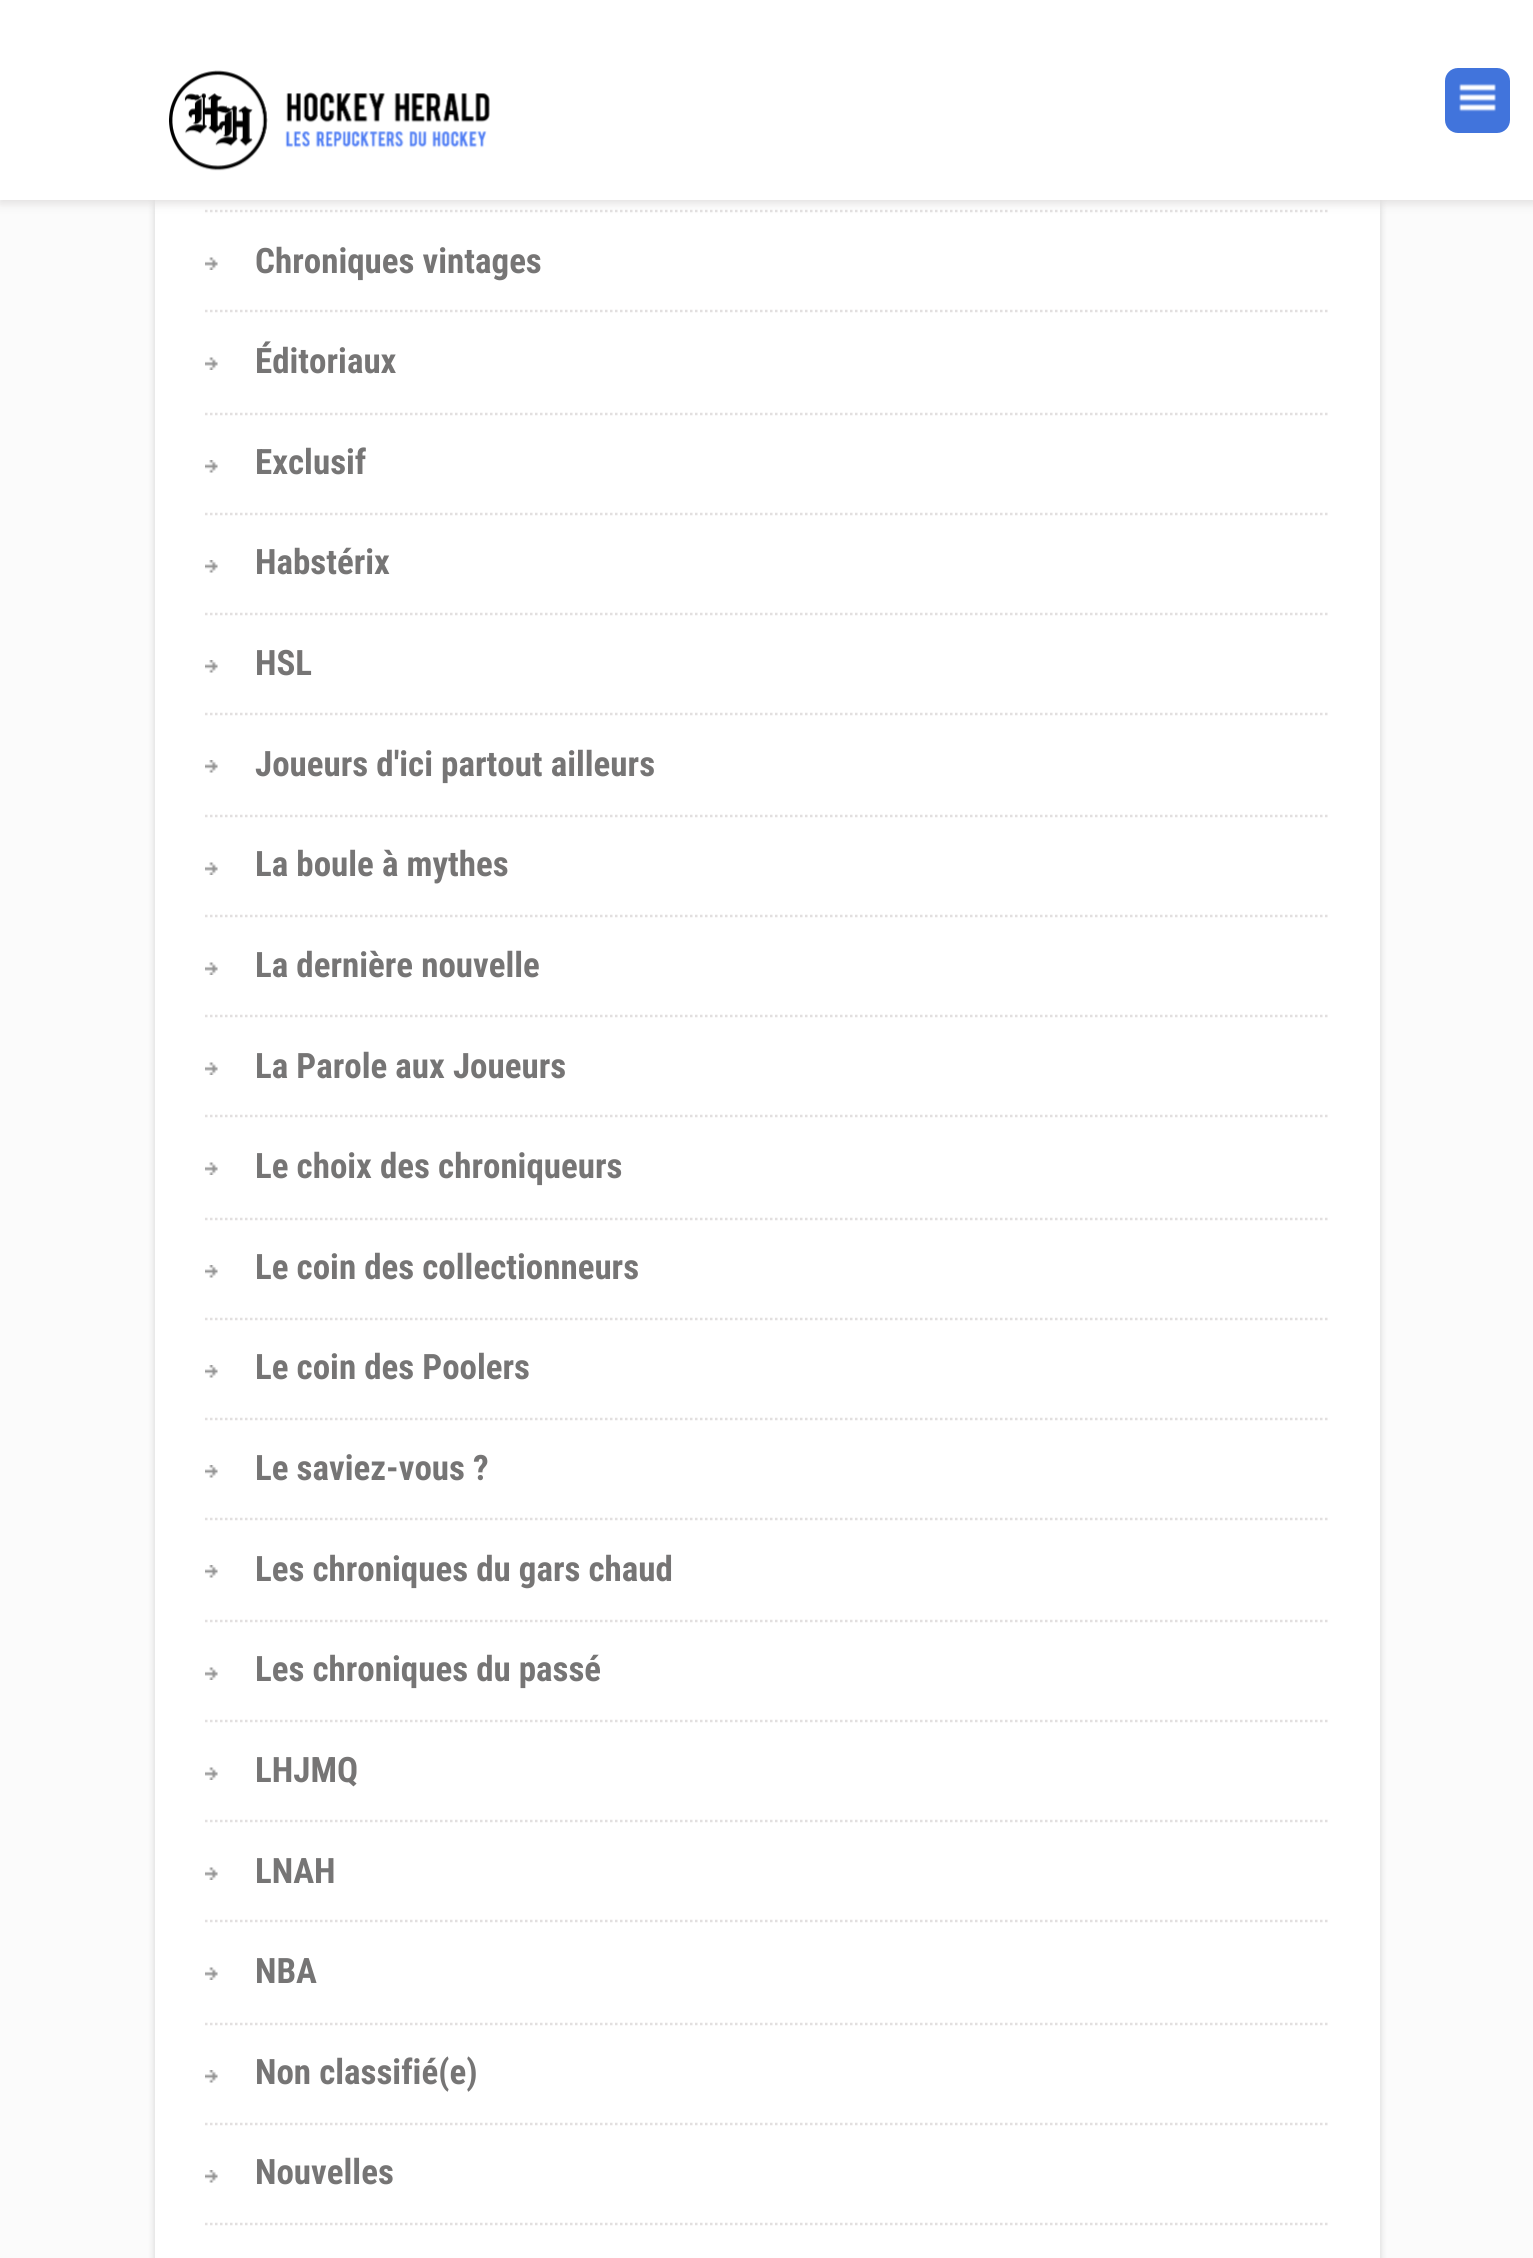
import math
import cairo

surface = cairo.ImageSurface(cairo.FORMAT_RGB24, 1533, 2258)
ctx = cairo.Context(surface)
options = cairo.FontOptions()
options.set_hint_metrics(cairo.HINT_METRICS_OFF)
options.set_hint_style(cairo.HINT_STYLE_NONE)
ctx.set_font_options(options)
ctx.set_miter_limit(4)


def set_color(code):
    ctx.set_source_rgb(*(v / 255 for v in bytes.fromhex(code[-6:])))


def draw_text(x, y, s, family, size, color, bold=False, italic=False):
    ctx.select_font_face(family, cairo.FONT_SLANT_ITALIC if italic else cairo.FONT_SLANT_NORMAL, cairo.FONT_WEIGHT_BOLD if bold else cairo.FONT_WEIGHT_NORMAL)
    ctx.set_font_size(size)
    set_color(color)
    ctx.move_to(x, y)
    ctx.show_text(s)


def fill_rect(x, y, w, h, color):
    set_color(color)
    ctx.rectangle(x, y, w, h)
    ctx.fill()


def rounded_rect(x, y, w, h, r):
    ctx.new_sub_path()
    for i, (u, v) in enumerate([(x + w - r, y + h - r), (x + r, y + h - r), (x + r, y + r), (x + w - r, y + r)]):
        ctx.arc(u, v, r, i * math.pi / 2, (i + 1) * math.pi / 2)
    ctx.close_path()


def draw_shadow(x, y, w, h, r, blur, alpha):
    ctx.push_group_with_content(cairo.CONTENT_ALPHA)
    ctx.set_operator(cairo.OPERATOR_SOURCE)
    for i in range(15, -16, -2):
        e = blur * i / 6
        if min(w, h) + 2 * e > 0:
            ctx.set_source_rgba(0, 0, 0, alpha * math.erfc((i - 1) / 8.5) / 2)
            rounded_rect(x - e, y - e, w + 2 * e, h + 2 * e, max(0, min(r + e + blur * .6, min(w, h) / 2 + e)))
            ctx.fill()
    ctx.mask(ctx.pop_group())


def draw_image(path, x, y, w, h):
    ctx.save()
    ctx.set_source_surface(cairo.ImageSurface.create_from_png(path), x, y)
    ctx.rectangle(x, y, w, h)
    ctx.fill()
    ctx.restore()


set_color("#fbfbfb")
ctx.paint()
set_color("#010101")
draw_shadow(155, -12, 1225, 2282, 0, 4, 0.16)
fill_rect(155, 200, 1225, 2058, "#ffffff")
ctx.new_path()
ctx.move_to(205, 211)
ctx.line_to(1330, 211)
set_color("#e2dfdf")
ctx.set_line_width(2.5)
ctx.set_dash([2.5, 2.5])
ctx.stroke()
set_color("#dfdddd")
draw_shadow(0, 3, 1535, 200, 0, 5, 1)
fill_rect(0, 0, 1533, 200, "#ffffff")
draw_image("assets/img1.png", 169, 70, 321, 101)
set_color("#4174dc")
rounded_rect(1445, 68, 65, 65, 13)
ctx.fill()
draw_image("assets/img2.png", 1459, 83, 37, 29)
draw_image("assets/img3.png", 205, 257, 13, 13)
ctx.new_path()
ctx.move_to(205, 311)
ctx.line_to(1330, 311)
set_color("#e2dfdf")
ctx.stroke()
draw_text(255, 273, "Chroniques vintages", "Roboto Condensed", 35, "#767575", bold=True)
draw_image("assets/img3.png", 205, 357, 13, 13)
ctx.new_path()
ctx.move_to(205, 414)
ctx.line_to(1330, 414)
set_color("#e2dfdf")
ctx.stroke()
draw_text(255, 373, "Éditoriaux", "Roboto Condensed", 35, "#767575", bold=True)
draw_image("assets/img4.png", 205, 460, 13, 13)
ctx.new_path()
ctx.move_to(205, 514)
ctx.line_to(1330, 514)
set_color("#e2dfdf")
ctx.stroke()
draw_text(255, 474, "Exclusif", "Roboto Condensed", 35, "#767575", bold=True)
draw_image("assets/img4.png", 205, 560, 13, 13)
ctx.new_path()
ctx.move_to(205, 614)
ctx.line_to(1330, 614)
set_color("#e2dfdf")
ctx.stroke()
draw_text(255, 574, "Habstérix", "Roboto Condensed", 35, "#767575", bold=True)
draw_image("assets/img4.png", 205, 660, 13, 13)
ctx.new_path()
ctx.move_to(205, 714)
ctx.line_to(1330, 714)
set_color("#e2dfdf")
ctx.stroke()
draw_text(255, 675, "HSL", "Roboto Condensed", 35, "#767575", bold=True)
draw_image("assets/img5.png", 205, 760, 13, 13)
ctx.new_path()
ctx.move_to(205, 816)
ctx.line_to(1330, 816)
set_color("#e2dfdf")
ctx.stroke()
draw_text(255, 776, "Joueurs d'ici partout ailleurs", "Roboto Condensed", 35, "#767575", bold=True)
draw_image("assets/img3.png", 205, 862, 13, 13)
ctx.new_path()
ctx.move_to(205, 916)
ctx.line_to(1330, 916)
set_color("#e2dfdf")
ctx.stroke()
draw_text(255, 876, "La boule à mythes", "Roboto Condensed", 35, "#767575", bold=True)
draw_image("assets/img3.png", 205, 962, 13, 13)
ctx.new_path()
ctx.move_to(205, 1016)
ctx.line_to(1330, 1016)
set_color("#e2dfdf")
ctx.stroke()
draw_text(255, 977, "La dernière nouvelle", "Roboto Condensed", 35, "#767575", bold=True)
draw_image("assets/img3.png", 205, 1062, 13, 13)
ctx.new_path()
ctx.move_to(205, 1116)
ctx.line_to(1330, 1116)
set_color("#e2dfdf")
ctx.stroke()
draw_text(255, 1078, "La Parole aux Joueurs", "Roboto Condensed", 35, "#767575", bold=True)
draw_image("assets/img3.png", 205, 1162, 13, 13)
ctx.new_path()
ctx.move_to(205, 1219)
ctx.line_to(1330, 1219)
set_color("#e2dfdf")
ctx.stroke()
draw_text(255, 1178, "Le choix des chroniqueurs", "Roboto Condensed", 35, "#767575", bold=True)
draw_image("assets/img4.png", 205, 1265, 13, 13)
ctx.new_path()
ctx.move_to(205, 1319)
ctx.line_to(1330, 1319)
set_color("#e2dfdf")
ctx.stroke()
draw_text(255, 1279, "Le coin des collectionneurs", "Roboto Condensed", 35, "#767575", bold=True)
draw_image("assets/img4.png", 205, 1365, 13, 13)
ctx.new_path()
ctx.move_to(205, 1419)
ctx.line_to(1330, 1419)
set_color("#e2dfdf")
ctx.stroke()
draw_text(255, 1379, "Le coin des Poolers", "Roboto Condensed", 35, "#767575", bold=True)
draw_image("assets/img4.png", 205, 1465, 13, 13)
ctx.new_path()
ctx.move_to(205, 1519)
ctx.line_to(1330, 1519)
set_color("#e2dfdf")
ctx.stroke()
draw_text(255, 1480, "Le saviez-vous ?", "Roboto Condensed", 35, "#767575", bold=True)
draw_image("assets/img4.png", 205, 1565, 13, 13)
ctx.new_path()
ctx.move_to(205, 1621)
ctx.line_to(1330, 1621)
set_color("#e2dfdf")
ctx.stroke()
draw_text(255, 1581, "Les chroniques du gars chaud", "Roboto Condensed", 35, "#767575", bold=True)
draw_image("assets/img3.png", 205, 1667, 13, 13)
ctx.new_path()
ctx.move_to(205, 1721)
ctx.line_to(1330, 1721)
set_color("#e2dfdf")
ctx.stroke()
draw_text(255, 1681, "Les chroniques du passé", "Roboto Condensed", 35, "#767575", bold=True)
draw_image("assets/img3.png", 205, 1767, 13, 13)
ctx.new_path()
ctx.move_to(205, 1821)
ctx.line_to(1330, 1821)
set_color("#e2dfdf")
ctx.stroke()
draw_text(255, 1782, "LHJMQ", "Roboto Condensed", 35, "#767575", bold=True)
draw_image("assets/img3.png", 205, 1867, 13, 13)
ctx.new_path()
ctx.move_to(205, 1921)
ctx.line_to(1330, 1921)
set_color("#e2dfdf")
ctx.stroke()
draw_text(255, 1883, "LNAH", "Roboto Condensed", 35, "#767575", bold=True)
draw_image("assets/img3.png", 205, 1967, 13, 13)
ctx.new_path()
ctx.move_to(205, 2024)
ctx.line_to(1330, 2024)
set_color("#e2dfdf")
ctx.stroke()
draw_text(255, 1983, "NBA", "Roboto Condensed", 35, "#767575", bold=True)
draw_image("assets/img4.png", 205, 2070, 13, 13)
ctx.new_path()
ctx.move_to(205, 2124)
ctx.line_to(1330, 2124)
set_color("#e2dfdf")
ctx.stroke()
draw_text(255, 2084, "Non classifié(e)", "Roboto Condensed", 35, "#767575", bold=True)
draw_image("assets/img4.png", 205, 2170, 13, 13)
ctx.new_path()
ctx.move_to(205, 2224)
ctx.line_to(1330, 2224)
set_color("#e2dfdf")
ctx.stroke()
draw_text(255, 2184, "Nouvelles", "Roboto Condensed", 35, "#767575", bold=True)
surface.write_to_png("output.png")
